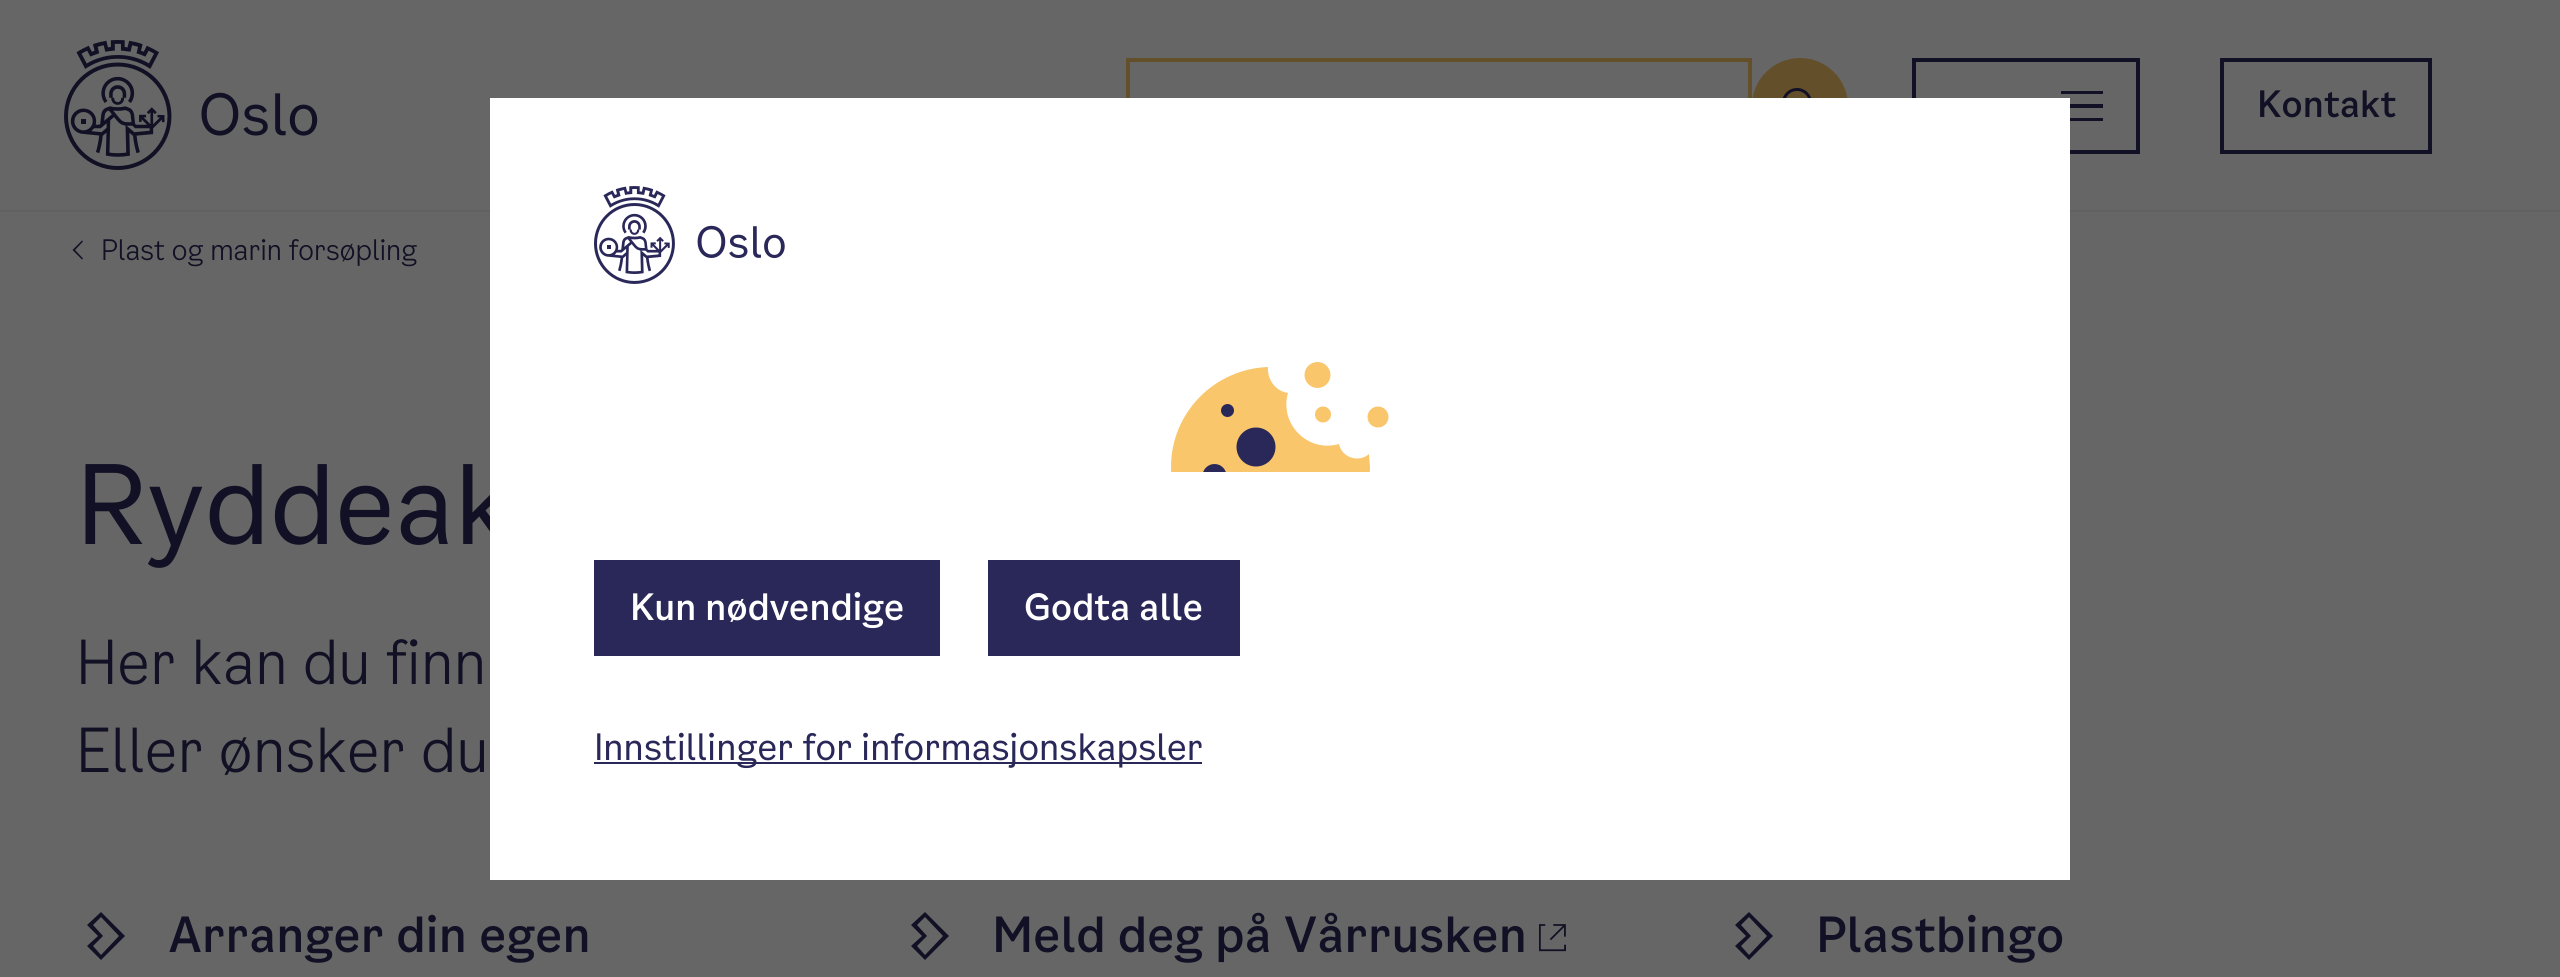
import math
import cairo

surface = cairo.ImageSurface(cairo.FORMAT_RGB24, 2560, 977)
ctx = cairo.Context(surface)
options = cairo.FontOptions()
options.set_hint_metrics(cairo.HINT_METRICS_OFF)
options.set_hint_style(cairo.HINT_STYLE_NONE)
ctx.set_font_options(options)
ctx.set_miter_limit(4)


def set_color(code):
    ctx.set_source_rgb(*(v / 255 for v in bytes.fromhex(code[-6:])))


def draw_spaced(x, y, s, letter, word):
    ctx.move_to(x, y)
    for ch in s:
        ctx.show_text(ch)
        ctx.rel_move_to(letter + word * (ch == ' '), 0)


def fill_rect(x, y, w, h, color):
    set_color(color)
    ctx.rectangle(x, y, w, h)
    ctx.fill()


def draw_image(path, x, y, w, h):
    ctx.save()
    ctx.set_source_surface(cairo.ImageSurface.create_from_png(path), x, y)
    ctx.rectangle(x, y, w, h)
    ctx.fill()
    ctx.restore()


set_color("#666666")
ctx.paint()
fill_rect(0, 210, 2560, 2, "#616161")
draw_image("assets/img1.png", 64, 40, 254, 130)
ctx.rectangle(1128, 60, 622, 92)
set_color("#644f2b")
ctx.set_line_width(4)
ctx.stroke()
ctx.arc(1800, 106, 46, 0, 2 * math.pi)
ctx.fill_preserve()
ctx.stroke()
draw_image("assets/img2.png", 1782, 88, 29, 10)
ctx.rectangle(1914, 60, 224, 92)
set_color("#111024")
ctx.stroke()
ctx.new_path()
ctx.move_to(2103, 118)
ctx.line_to(2103, 121)
ctx.line_to(2061, 121)
ctx.line_to(2061, 118)
ctx.close_path()
ctx.move_to(2103, 104)
ctx.line_to(2103, 108)
ctx.line_to(2061, 108)
ctx.line_to(2061, 104)
ctx.close_path()
ctx.move_to(2103, 91)
ctx.line_to(2103, 94)
ctx.line_to(2061, 94)
ctx.line_to(2061, 91)
ctx.close_path()
ctx.fill()
ctx.rectangle(2222, 60, 208, 92)
ctx.stroke()
ctx.select_font_face("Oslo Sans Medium")
ctx.set_font_size(36)
draw_spaced(2257, 117, "Kontakt", -0.4, 0)
ctx.new_path()
ctx.move_to(75, 250)
ctx.line_to(83, 241.5)
ctx.line_to(82, 240.5)
ctx.line_to(72.5, 250)
ctx.line_to(82, 259.5)
ctx.line_to(83, 258.5)
ctx.close_path()
ctx.fill()
ctx.select_font_face("Oslo Sans Light")
ctx.set_font_size(28)
draw_spaced(101, 260, "Plast og marin forsøpling", -0.4, 0)
ctx.select_font_face("Oslo Sans")
ctx.set_font_size(108)
draw_spaced(76, 544, "Ryddeak", -0.75, 0)
ctx.select_font_face("Oslo Sans Light")
ctx.set_font_size(60)
draw_spaced(76, 684, "Her kan du finn", -0.4, 0)
draw_spaced(76, 772, "Eller ønsker du", -0.4, 0)
ctx.new_path()
ctx.move_to(119, 936)
ctx.line_to(101, 917)
ctx.line_to(93, 925)
ctx.line_to(103, 936)
ctx.line_to(93, 946)
ctx.line_to(101, 955)
ctx.close_path()
ctx.move_to(87, 925)
ctx.line_to(101, 912)
ctx.line_to(125, 936)
ctx.line_to(101, 960)
ctx.line_to(87, 946)
ctx.line_to(98, 936)
ctx.close_path()
ctx.fill()
ctx.select_font_face("Oslo Sans Medium")
ctx.set_font_size(48)
draw_spaced(168, 952, "Arranger din egen", -0.4, 0)
ctx.new_path()
ctx.move_to(943, 936)
ctx.line_to(925, 917)
ctx.line_to(917, 925)
ctx.line_to(927, 936)
ctx.line_to(917, 946)
ctx.line_to(925, 955)
ctx.close_path()
ctx.move_to(911, 925)
ctx.line_to(925, 912)
ctx.line_to(949, 936)
ctx.line_to(925, 960)
ctx.line_to(911, 946)
ctx.line_to(922, 936)
ctx.close_path()
ctx.fill()
draw_spaced(992, 952, "Meld deg på Vårrusken", -0.4, 0)
draw_image("assets/img3.png", 1539, 924, 27, 28)
ctx.new_path()
ctx.move_to(1767, 936)
ctx.line_to(1749, 917)
ctx.line_to(1741, 925)
ctx.line_to(1751, 936)
ctx.line_to(1741, 946)
ctx.line_to(1749, 955)
ctx.close_path()
ctx.move_to(1735, 925)
ctx.line_to(1749, 912)
ctx.line_to(1773, 936)
ctx.line_to(1749, 960)
ctx.line_to(1735, 946)
ctx.line_to(1746, 936)
ctx.close_path()
ctx.fill()
draw_spaced(1816, 952, "Plastbingo", -0.4, 0)
fill_rect(490, 98, 1580, 782, "#ffffff")
draw_image("assets/img4.png", 594, 186, 191, 98)
ctx.save()
ctx.rectangle(1158, 362, 244, 110)
ctx.clip()
set_color("#f9c66b")
ctx.set_fill_rule(cairo.FILL_RULE_EVEN_ODD)
ctx.new_path()
ctx.move_to(1171, 467)
ctx.curve_to(1171, 413, 1214, 369, 1268, 367)
ctx.curve_to(1267, 379, 1275, 391, 1288, 393)
ctx.curve_to(1279, 424, 1308, 453, 1339, 444)
ctx.curve_to(1342, 458, 1359, 463, 1369, 454)
ctx.line_to(1370, 467)
ctx.curve_to(1370, 522, 1325, 566, 1271, 566)
ctx.curve_to(1216, 566, 1171, 522, 1171, 467)
ctx.close_path()
ctx.fill()
ctx.restore()
set_color("#f9c66b")
ctx.arc(1317.5, 375, 13, 0, 2 * math.pi)
ctx.fill()
set_color("#2a2859")
ctx.arc(1227.5, 410.5, 6.5, 0, 2 * math.pi)
ctx.fill()
set_color("#f9c66b")
ctx.arc(1323, 414.5, 8, 0, 2 * math.pi)
ctx.fill()
ctx.arc(1378, 417, 10.5, 0, 2 * math.pi)
ctx.fill()
set_color("#2a2859")
ctx.arc(1256, 447, 19.5, 0, 2 * math.pi)
ctx.fill()
ctx.save()
ctx.rectangle(1158, 362, 244, 110)
ctx.clip()
ctx.arc(1214.5, 476, 12, 0, 2 * math.pi)
ctx.fill()
ctx.restore()
fill_rect(594, 560, 346, 96, "#2a2859")
ctx.set_font_size(36)
set_color("#ffffff")
draw_spaced(630, 620, "Kun nødvendige", -0.4, 0)
fill_rect(988, 560, 252, 96, "#2a2859")
set_color("#ffffff")
draw_spaced(1024, 620, "Godta alle", -0.4, 0)
fill_rect(594, 762, 608, 2, "#2a2859")
ctx.select_font_face("Oslo Sans")
draw_spaced(594, 760, "Innstillinger for informasjonskapsler", -0.4, 0)
surface.write_to_png("output.png")
